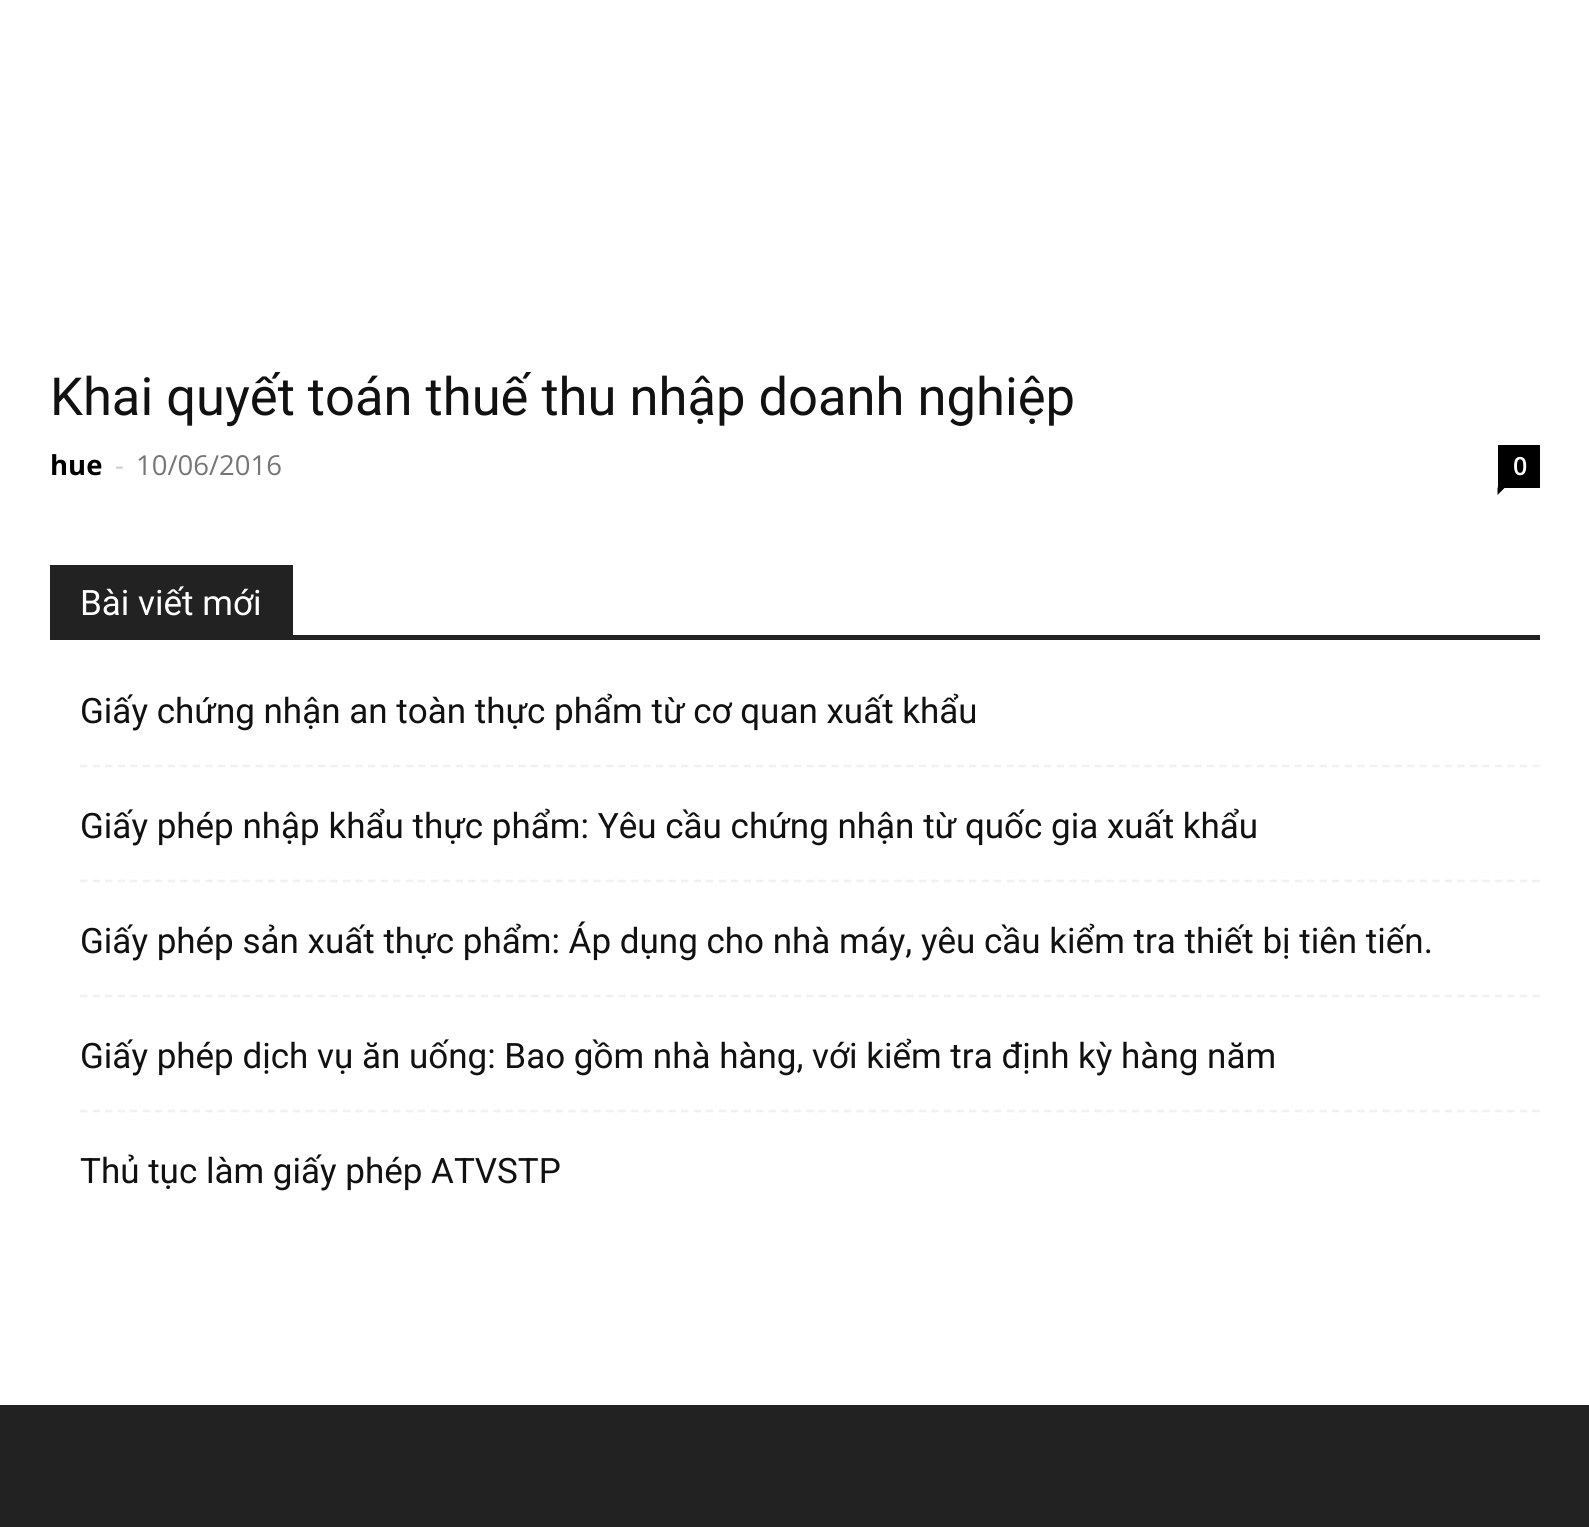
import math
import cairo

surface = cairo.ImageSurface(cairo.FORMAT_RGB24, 1589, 1527)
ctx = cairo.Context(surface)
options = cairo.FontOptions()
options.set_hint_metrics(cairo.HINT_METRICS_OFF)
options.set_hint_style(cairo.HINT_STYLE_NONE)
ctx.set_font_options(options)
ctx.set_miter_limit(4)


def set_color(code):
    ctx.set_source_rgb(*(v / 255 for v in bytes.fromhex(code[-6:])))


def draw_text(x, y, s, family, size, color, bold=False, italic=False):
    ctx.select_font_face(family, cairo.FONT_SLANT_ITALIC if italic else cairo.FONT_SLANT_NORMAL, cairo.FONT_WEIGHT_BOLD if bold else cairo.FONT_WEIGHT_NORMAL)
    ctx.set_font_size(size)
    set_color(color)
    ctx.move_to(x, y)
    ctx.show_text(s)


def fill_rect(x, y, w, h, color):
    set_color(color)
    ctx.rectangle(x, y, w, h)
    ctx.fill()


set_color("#ffffff")
ctx.paint()
draw_text(50, 415, "Khai quyết toán thuế thu nhập doanh nghiệp", "Roboto", 52.5, "#111111")
draw_text(50, 475, "hue", "Open Sans", 27.5, "#000000", bold=True)
draw_text(115, 475, "-", "Open Sans", 27.5, "#cccccc")
draw_text(136, 475, "10/06/2016", "Open Sans", 27.5, "#767676")
fill_rect(1498, 445, 42, 43, "#000000")
draw_text(1513, 475, "0", "Open Sans SemiBold", 25, "#ffffff")
set_color("#000000")
ctx.new_path()
ctx.move_to(1497.5, 487.5)
ctx.line_to(1505, 487.5)
ctx.line_to(1497.5, 495)
ctx.close_path()
ctx.fill()
fill_rect(50, 635, 1490, 5, "#222222")
fill_rect(50, 565, 243, 70, "#222222")
draw_text(80, 615, "Bài viết mới", "Roboto", 35, "#ffffff")
ctx.new_path()
ctx.move_to(80, 766)
ctx.line_to(1540, 766)
set_color("#f1f1f1")
ctx.set_line_width(2.5)
ctx.set_dash([7.5, 5.02])
ctx.stroke()
draw_text(80, 723, "Giấy chứng nhận an toàn thực phẩm từ cơ quan xuất khẩu", "Roboto", 35, "#111111")
ctx.new_path()
ctx.move_to(80, 881)
ctx.line_to(1540, 881)
set_color("#f1f1f1")
ctx.stroke()
draw_text(80, 838, "Giấy phép nhập khẩu thực phẩm: Yêu cầu chứng nhận từ quốc gia xuất khẩu", "Roboto", 35, "#111111")
ctx.new_path()
ctx.move_to(80, 996)
ctx.line_to(1540, 996)
set_color("#f1f1f1")
ctx.stroke()
draw_text(80, 953, "Giấy phép sản xuất thực phẩm: Áp dụng cho nhà máy, yêu cầu kiểm tra thiết bị tiên tiến.", "Roboto", 35, "#111111")
ctx.new_path()
ctx.move_to(80, 1111)
ctx.line_to(1540, 1111)
set_color("#f1f1f1")
ctx.stroke()
draw_text(80, 1068, "Giấy phép dịch vụ ăn uống: Bao gồm nhà hàng, với kiểm tra định kỳ hàng năm", "Roboto", 35, "#111111")
draw_text(80, 1183, "Thủ tục làm giấy phép ATVSTP", "Roboto", 35, "#111111")
fill_rect(0, 1405, 1589, 122, "#222222")
surface.write_to_png("output.png")
